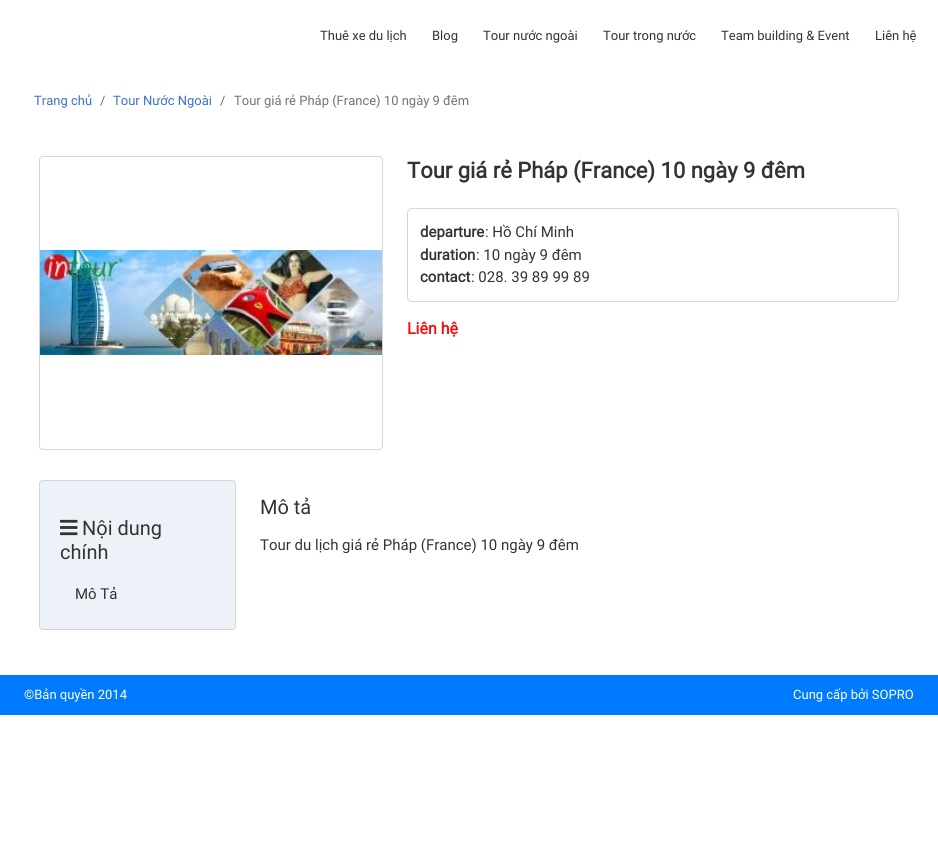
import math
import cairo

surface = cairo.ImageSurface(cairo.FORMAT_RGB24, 938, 855)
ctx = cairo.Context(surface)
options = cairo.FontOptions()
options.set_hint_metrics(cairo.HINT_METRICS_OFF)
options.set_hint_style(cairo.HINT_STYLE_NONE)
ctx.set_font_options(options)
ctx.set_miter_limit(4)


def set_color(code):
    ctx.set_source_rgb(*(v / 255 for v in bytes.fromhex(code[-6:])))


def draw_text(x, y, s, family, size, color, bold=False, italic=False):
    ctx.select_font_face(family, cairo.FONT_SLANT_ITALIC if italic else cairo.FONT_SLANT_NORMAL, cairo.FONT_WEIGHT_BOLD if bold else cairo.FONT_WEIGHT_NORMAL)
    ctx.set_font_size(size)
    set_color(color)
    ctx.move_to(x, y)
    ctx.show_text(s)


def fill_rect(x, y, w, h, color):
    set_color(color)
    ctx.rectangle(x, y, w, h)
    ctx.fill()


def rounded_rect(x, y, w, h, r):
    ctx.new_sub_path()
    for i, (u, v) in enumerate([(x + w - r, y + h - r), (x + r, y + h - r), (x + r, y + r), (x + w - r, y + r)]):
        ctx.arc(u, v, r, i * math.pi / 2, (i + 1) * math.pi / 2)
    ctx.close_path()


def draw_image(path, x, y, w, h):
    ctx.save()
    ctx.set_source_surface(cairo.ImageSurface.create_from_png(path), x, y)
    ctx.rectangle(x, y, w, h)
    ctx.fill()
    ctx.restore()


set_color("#ffffff")
ctx.paint()
draw_text(320, 40, "Thuê xe du lịch", "Roboto", 13, "#333333")
draw_text(432, 40, "Blog", "Roboto", 13, "#333333")
draw_text(483, 40, "Tour nước ngoài", "Roboto", 13, "#333333")
draw_text(603, 40, "Tour trong nước", "Roboto", 13, "#333333")
draw_text(721, 40, "Team building & Event", "Roboto", 13, "#333333")
draw_text(875, 40, "Liên hệ", "Roboto", 13, "#333333")
draw_text(34, 105, "Trang chủ", "Roboto", 13, "#3b71ca")
draw_text(100, 105, "/", "Roboto", 13, "#6c757d")
draw_text(113, 105, "Tour Nước Ngoài", "Roboto", 13, "#3b71ca")
draw_text(220, 105, "/", "Roboto", 13, "#6c757d")
draw_text(234, 105, "Tour giá rẻ Pháp (France) 10 ngày 9 đêm", "Roboto", 13, "#6c757d")
rounded_rect(39.5, 156.5, 343, 293, 3.5)
set_color("#d7d7d7")
ctx.set_line_width(1)
ctx.stroke()
draw_image("assets/img1.png", 40, 250, 342, 105)
draw_text(407, 178, "Tour giá rẻ Pháp (France) 10 ngày 9 đêm", "Roboto", 22, "#333333", bold=True)
rounded_rect(407.5, 208.5, 491, 93, 4.5)
set_color("#d7d7d7")
ctx.stroke()
draw_text(420, 237, "departure", "Roboto", 15, "#333333", bold=True)
draw_text(485, 237, ": Hồ Chí Minh", "Roboto", 15, "#333333")
draw_text(420, 260, "duration", "Roboto", 15, "#333333", bold=True)
draw_text(476, 260, ": 10 ngày 9 đêm", "Roboto", 15, "#333333")
draw_text(420, 282, "contact", "Roboto", 15, "#333333", bold=True)
draw_text(471, 282, ": 028. 39 89 99 89", "Roboto", 15, "#333333")
draw_text(407, 334, "Liên hệ", "Roboto", 16, "#f80b0b", bold=True)
set_color("#edf2f8")
rounded_rect(39, 480, 197, 150, 4)
ctx.fill()
rounded_rect(39.5, 480.5, 196, 149, 3.5)
ctx.set_source_rgba(0, 0, 0, 0.12)
ctx.stroke()
draw_image("assets/img2.png", 60, 519, 18, 17)
draw_text(82, 535, "Nội dung", "Roboto", 20, "#333333")
draw_text(60, 559, "chính", "Roboto", 20, "#333333")
draw_text(75, 599, "Mô Tả", "Roboto", 15, "#333333")
draw_text(260, 514, "Mô tả", "Roboto", 20, "#333333")
draw_text(260, 550, "Tour du lịch giá rẻ Pháp (France) 10 ngày 9 đêm", "Roboto", 15, "#333333")
fill_rect(0, 675, 938, 40, "#007bff")
draw_text(24, 699, "©Bản quyền 2014", "Roboto", 13, "#ffffff")
draw_text(793, 699, "Cung cấp bởi SOPRO", "Roboto", 13, "#ffffff")
surface.write_to_png("output.png")
